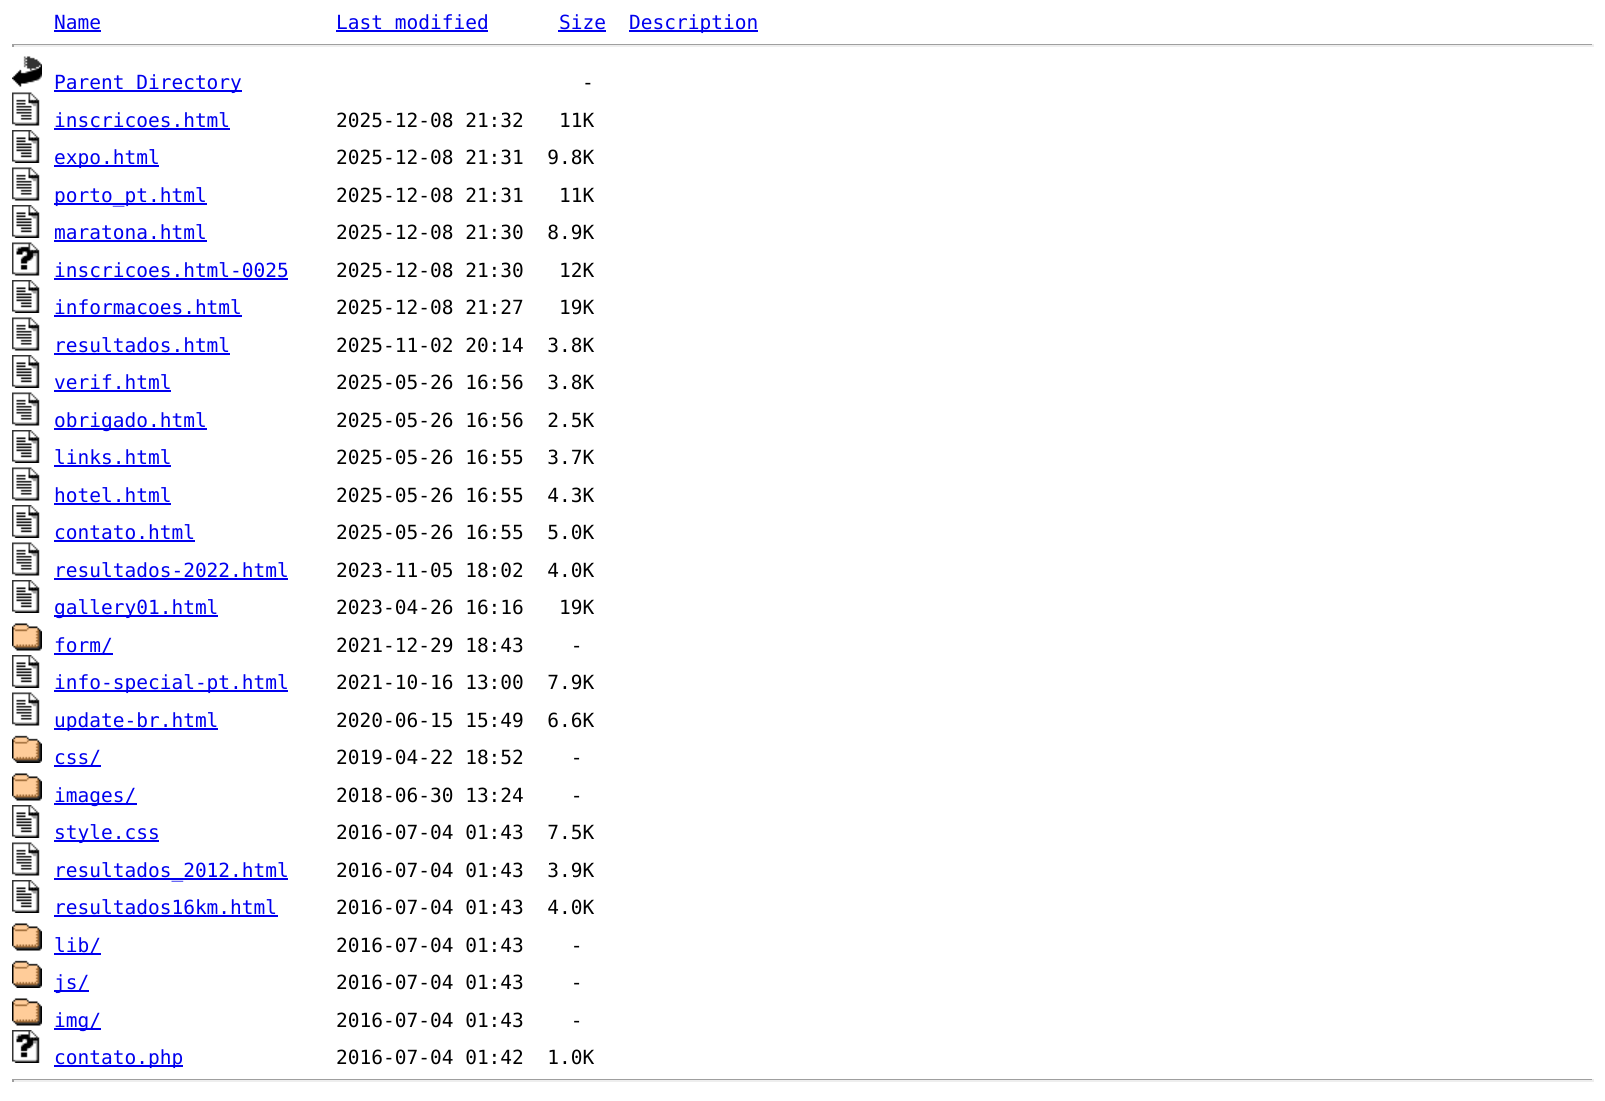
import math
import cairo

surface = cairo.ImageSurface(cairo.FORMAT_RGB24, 1605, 1101)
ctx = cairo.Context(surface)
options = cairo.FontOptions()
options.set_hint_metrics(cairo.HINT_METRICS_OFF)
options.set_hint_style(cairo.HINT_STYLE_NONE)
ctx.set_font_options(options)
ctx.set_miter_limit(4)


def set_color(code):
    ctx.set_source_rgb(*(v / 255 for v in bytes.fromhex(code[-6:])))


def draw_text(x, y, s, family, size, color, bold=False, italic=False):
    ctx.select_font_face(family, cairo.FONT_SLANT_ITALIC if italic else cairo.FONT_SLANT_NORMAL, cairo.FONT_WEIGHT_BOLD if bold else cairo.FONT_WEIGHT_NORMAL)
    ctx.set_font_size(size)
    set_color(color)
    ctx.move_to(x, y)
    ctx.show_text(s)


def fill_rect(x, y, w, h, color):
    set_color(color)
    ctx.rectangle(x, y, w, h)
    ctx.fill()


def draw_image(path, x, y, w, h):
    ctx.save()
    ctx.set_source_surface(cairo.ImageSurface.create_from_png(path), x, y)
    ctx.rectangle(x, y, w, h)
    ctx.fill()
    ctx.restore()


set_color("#ffffff")
ctx.paint()
draw_text(54, 29, "Name", "DejaVu Sans Mono", 19.5, "#0000ee")
fill_rect(54, 30, 47, 2, "#0000ee")
draw_text(336, 29, "Last modified", "DejaVu Sans Mono", 19.5, "#0000ee")
fill_rect(336, 30, 152, 2, "#0000ee")
draw_text(559, 29, "Size", "DejaVu Sans Mono", 19.5, "#0000ee")
fill_rect(558, 30, 48, 2, "#0000ee")
fill_rect(629, 30, 129, 2, "#0000ee")
draw_text(629, 29, "Description", "DejaVu Sans Mono", 19.5, "#0000ee")
fill_rect(12, 44, 1581, 1, "#9f9f9f")
fill_rect(1592, 44, 2, 3, "#eeeeee")
fill_rect(12, 45, 1581, 2, "#eeeeee")
fill_rect(12, 44, 2, 3, "#9f9f9f")
draw_image("assets/img1.png", 12, 56, 30, 31)
fill_rect(54, 90, 188, 2, "#0000ee")
draw_text(54, 89, "Parent Directory", "DejaVu Sans Mono", 19.5, "#0000ee")
draw_text(582, 89, "-", "DejaVu Sans Mono", 19.5, "#000000")
draw_image("assets/img2.png", 12, 92, 28, 34)
draw_text(54, 127, "inscricoes.html", "DejaVu Sans Mono", 19.5, "#0000ee")
fill_rect(54, 128, 176, 2, "#0000ee")
draw_text(336, 127, "2025-12-08 21:32   11K", "DejaVu Sans Mono", 19.5, "#000000")
draw_image("assets/img3.png", 12, 130, 28, 33)
fill_rect(54, 165, 105, 2, "#0000ee")
draw_text(54, 164, "expo.html", "DejaVu Sans Mono", 19.5, "#0000ee")
draw_text(336, 164, "2025-12-08 21:31  9.8K", "DejaVu Sans Mono", 19.5, "#000000")
draw_image("assets/img2.png", 12, 167, 28, 34)
fill_rect(54, 203, 153, 2, "#0000ee")
draw_text(54, 202, "porto_pt.html", "DejaVu Sans Mono", 19.5, "#0000ee")
draw_text(336, 202, "2025-12-08 21:31   11K", "DejaVu Sans Mono", 19.5, "#000000")
draw_image("assets/img3.png", 12, 205, 28, 33)
draw_text(54, 239, "maratona.html", "DejaVu Sans Mono", 19.5, "#0000ee")
fill_rect(54, 240, 153, 2, "#0000ee")
draw_text(336, 239, "2025-12-08 21:30  8.9K", "DejaVu Sans Mono", 19.5, "#000000")
draw_image("assets/img4.png", 12, 242, 28, 34)
draw_text(54, 277, "inscricoes.html-0025", "DejaVu Sans Mono", 19.5, "#0000ee")
fill_rect(54, 278, 234, 2, "#0000ee")
draw_text(336, 277, "2025-12-08 21:30   12K", "DejaVu Sans Mono", 19.5, "#000000")
draw_image("assets/img3.png", 12, 280, 28, 33)
draw_text(54, 314, "informacoes.html", "DejaVu Sans Mono", 19.5, "#0000ee")
fill_rect(54, 315, 188, 2, "#0000ee")
draw_text(336, 314, "2025-12-08 21:27   19K", "DejaVu Sans Mono", 19.5, "#000000")
draw_image("assets/img2.png", 12, 317, 28, 34)
draw_text(54, 352, "resultados.html", "DejaVu Sans Mono", 19.5, "#0000ee")
fill_rect(54, 353, 176, 2, "#0000ee")
draw_text(336, 352, "2025-11-02 20:14  3.8K", "DejaVu Sans Mono", 19.5, "#000000")
draw_image("assets/img3.png", 12, 355, 28, 33)
draw_text(54, 389, "verif.html", "DejaVu Sans Mono", 19.5, "#0000ee")
fill_rect(54, 390, 117, 2, "#0000ee")
draw_text(336, 389, "2025-05-26 16:56  3.8K", "DejaVu Sans Mono", 19.5, "#000000")
draw_image("assets/img2.png", 12, 392, 28, 34)
fill_rect(54, 428, 153, 2, "#0000ee")
draw_text(54, 427, "obrigado.html", "DejaVu Sans Mono", 19.5, "#0000ee")
draw_text(336, 427, "2025-05-26 16:56  2.5K", "DejaVu Sans Mono", 19.5, "#000000")
draw_image("assets/img3.png", 12, 430, 28, 33)
draw_text(54, 464, "links.html", "DejaVu Sans Mono", 19.5, "#0000ee")
fill_rect(54, 465, 117, 2, "#0000ee")
draw_text(336, 464, "2025-05-26 16:55  3.7K", "DejaVu Sans Mono", 19.5, "#000000")
draw_image("assets/img2.png", 12, 467, 28, 34)
draw_text(54, 502, "hotel.html", "DejaVu Sans Mono", 19.5, "#0000ee")
fill_rect(54, 503, 117, 2, "#0000ee")
draw_text(336, 502, "2025-05-26 16:55  4.3K", "DejaVu Sans Mono", 19.5, "#000000")
draw_image("assets/img3.png", 12, 505, 28, 33)
draw_text(54, 539, "contato.html", "DejaVu Sans Mono", 19.5, "#0000ee")
fill_rect(54, 540, 141, 2, "#0000ee")
draw_text(336, 539, "2025-05-26 16:55  5.0K", "DejaVu Sans Mono", 19.5, "#000000")
draw_image("assets/img2.png", 12, 542, 28, 34)
draw_text(54, 577, "resultados-2022.html", "DejaVu Sans Mono", 19.5, "#0000ee")
fill_rect(54, 578, 234, 2, "#0000ee")
draw_text(336, 577, "2023-11-05 18:02  4.0K", "DejaVu Sans Mono", 19.5, "#000000")
draw_image("assets/img3.png", 12, 580, 28, 33)
fill_rect(54, 615, 164, 2, "#0000ee")
draw_text(54, 614, "gallery01.html", "DejaVu Sans Mono", 19.5, "#0000ee")
draw_text(336, 614, "2023-04-26 16:16   19K", "DejaVu Sans Mono", 19.5, "#000000")
draw_image("assets/img5.png", 12, 623, 30, 28)
fill_rect(54, 653, 59, 2, "#0000ee")
draw_text(54, 652, "form/", "DejaVu Sans Mono", 19.5, "#0000ee")
draw_text(336, 652, "2021-12-29 18:43    -", "DejaVu Sans Mono", 19.5, "#000000")
draw_image("assets/img3.png", 12, 655, 28, 33)
fill_rect(54, 690, 234, 2, "#0000ee")
draw_text(54, 689, "info-special-pt.html", "DejaVu Sans Mono", 19.5, "#0000ee")
draw_text(336, 689, "2021-10-16 13:00  7.9K", "DejaVu Sans Mono", 19.5, "#000000")
draw_image("assets/img2.png", 12, 692, 28, 34)
fill_rect(54, 728, 164, 2, "#0000ee")
draw_text(54, 727, "update-br.html", "DejaVu Sans Mono", 19.5, "#0000ee")
draw_text(336, 727, "2020-06-15 15:49  6.6K", "DejaVu Sans Mono", 19.5, "#000000")
draw_image("assets/img6.png", 12, 735, 30, 28)
fill_rect(54, 765, 47, 2, "#0000ee")
draw_text(54, 764, "css/", "DejaVu Sans Mono", 19.5, "#0000ee")
draw_text(336, 764, "2019-04-22 18:52    -", "DejaVu Sans Mono", 19.5, "#000000")
draw_image("assets/img5.png", 12, 773, 30, 28)
fill_rect(54, 803, 83, 2, "#0000ee")
draw_text(54, 802, "images/", "DejaVu Sans Mono", 19.5, "#0000ee")
draw_text(336, 802, "2018-06-30 13:24    -", "DejaVu Sans Mono", 19.5, "#000000")
draw_image("assets/img3.png", 12, 805, 28, 33)
fill_rect(54, 840, 105, 2, "#0000ee")
draw_text(54, 839, "style.css", "DejaVu Sans Mono", 19.5, "#0000ee")
draw_text(336, 839, "2016-07-04 01:43  7.5K", "DejaVu Sans Mono", 19.5, "#000000")
draw_image("assets/img2.png", 12, 842, 28, 34)
fill_rect(54, 878, 234, 2, "#0000ee")
draw_text(54, 877, "resultados_2012.html", "DejaVu Sans Mono", 19.5, "#0000ee")
draw_text(336, 877, "2016-07-04 01:43  3.9K", "DejaVu Sans Mono", 19.5, "#000000")
draw_image("assets/img3.png", 12, 880, 28, 33)
draw_text(54, 914, "resultados16km.html", "DejaVu Sans Mono", 19.5, "#0000ee")
fill_rect(54, 915, 224, 2, "#0000ee")
draw_text(336, 914, "2016-07-04 01:43  4.0K", "DejaVu Sans Mono", 19.5, "#000000")
draw_image("assets/img5.png", 12, 923, 30, 28)
fill_rect(54, 953, 47, 2, "#0000ee")
draw_text(54, 952, "lib/", "DejaVu Sans Mono", 19.5, "#0000ee")
draw_text(336, 952, "2016-07-04 01:43    -", "DejaVu Sans Mono", 19.5, "#000000")
draw_image("assets/img6.png", 12, 960, 30, 28)
fill_rect(54, 990, 35, 2, "#0000ee")
draw_text(54, 989, "js/", "DejaVu Sans Mono", 19.5, "#0000ee")
draw_text(336, 989, "2016-07-04 01:43    -", "DejaVu Sans Mono", 19.5, "#000000")
draw_image("assets/img5.png", 12, 998, 30, 28)
fill_rect(54, 1028, 47, 2, "#0000ee")
draw_text(54, 1027, "img/", "DejaVu Sans Mono", 19.5, "#0000ee")
draw_text(336, 1027, "2016-07-04 01:43    -", "DejaVu Sans Mono", 19.5, "#000000")
draw_image("assets/img7.png", 12, 1030, 28, 33)
fill_rect(54, 1065, 129, 2, "#0000ee")
draw_text(54, 1064, "contato.php", "DejaVu Sans Mono", 19.5, "#0000ee")
draw_text(336, 1064, "2016-07-04 01:42  1.0K", "DejaVu Sans Mono", 19.5, "#000000")
fill_rect(12, 1079, 1581, 1, "#9f9f9f")
fill_rect(1592, 1079, 2, 3, "#eeeeee")
fill_rect(12, 1080, 1581, 2, "#eeeeee")
fill_rect(12, 1079, 2, 3, "#9f9f9f")
surface.write_to_png("output.png")
